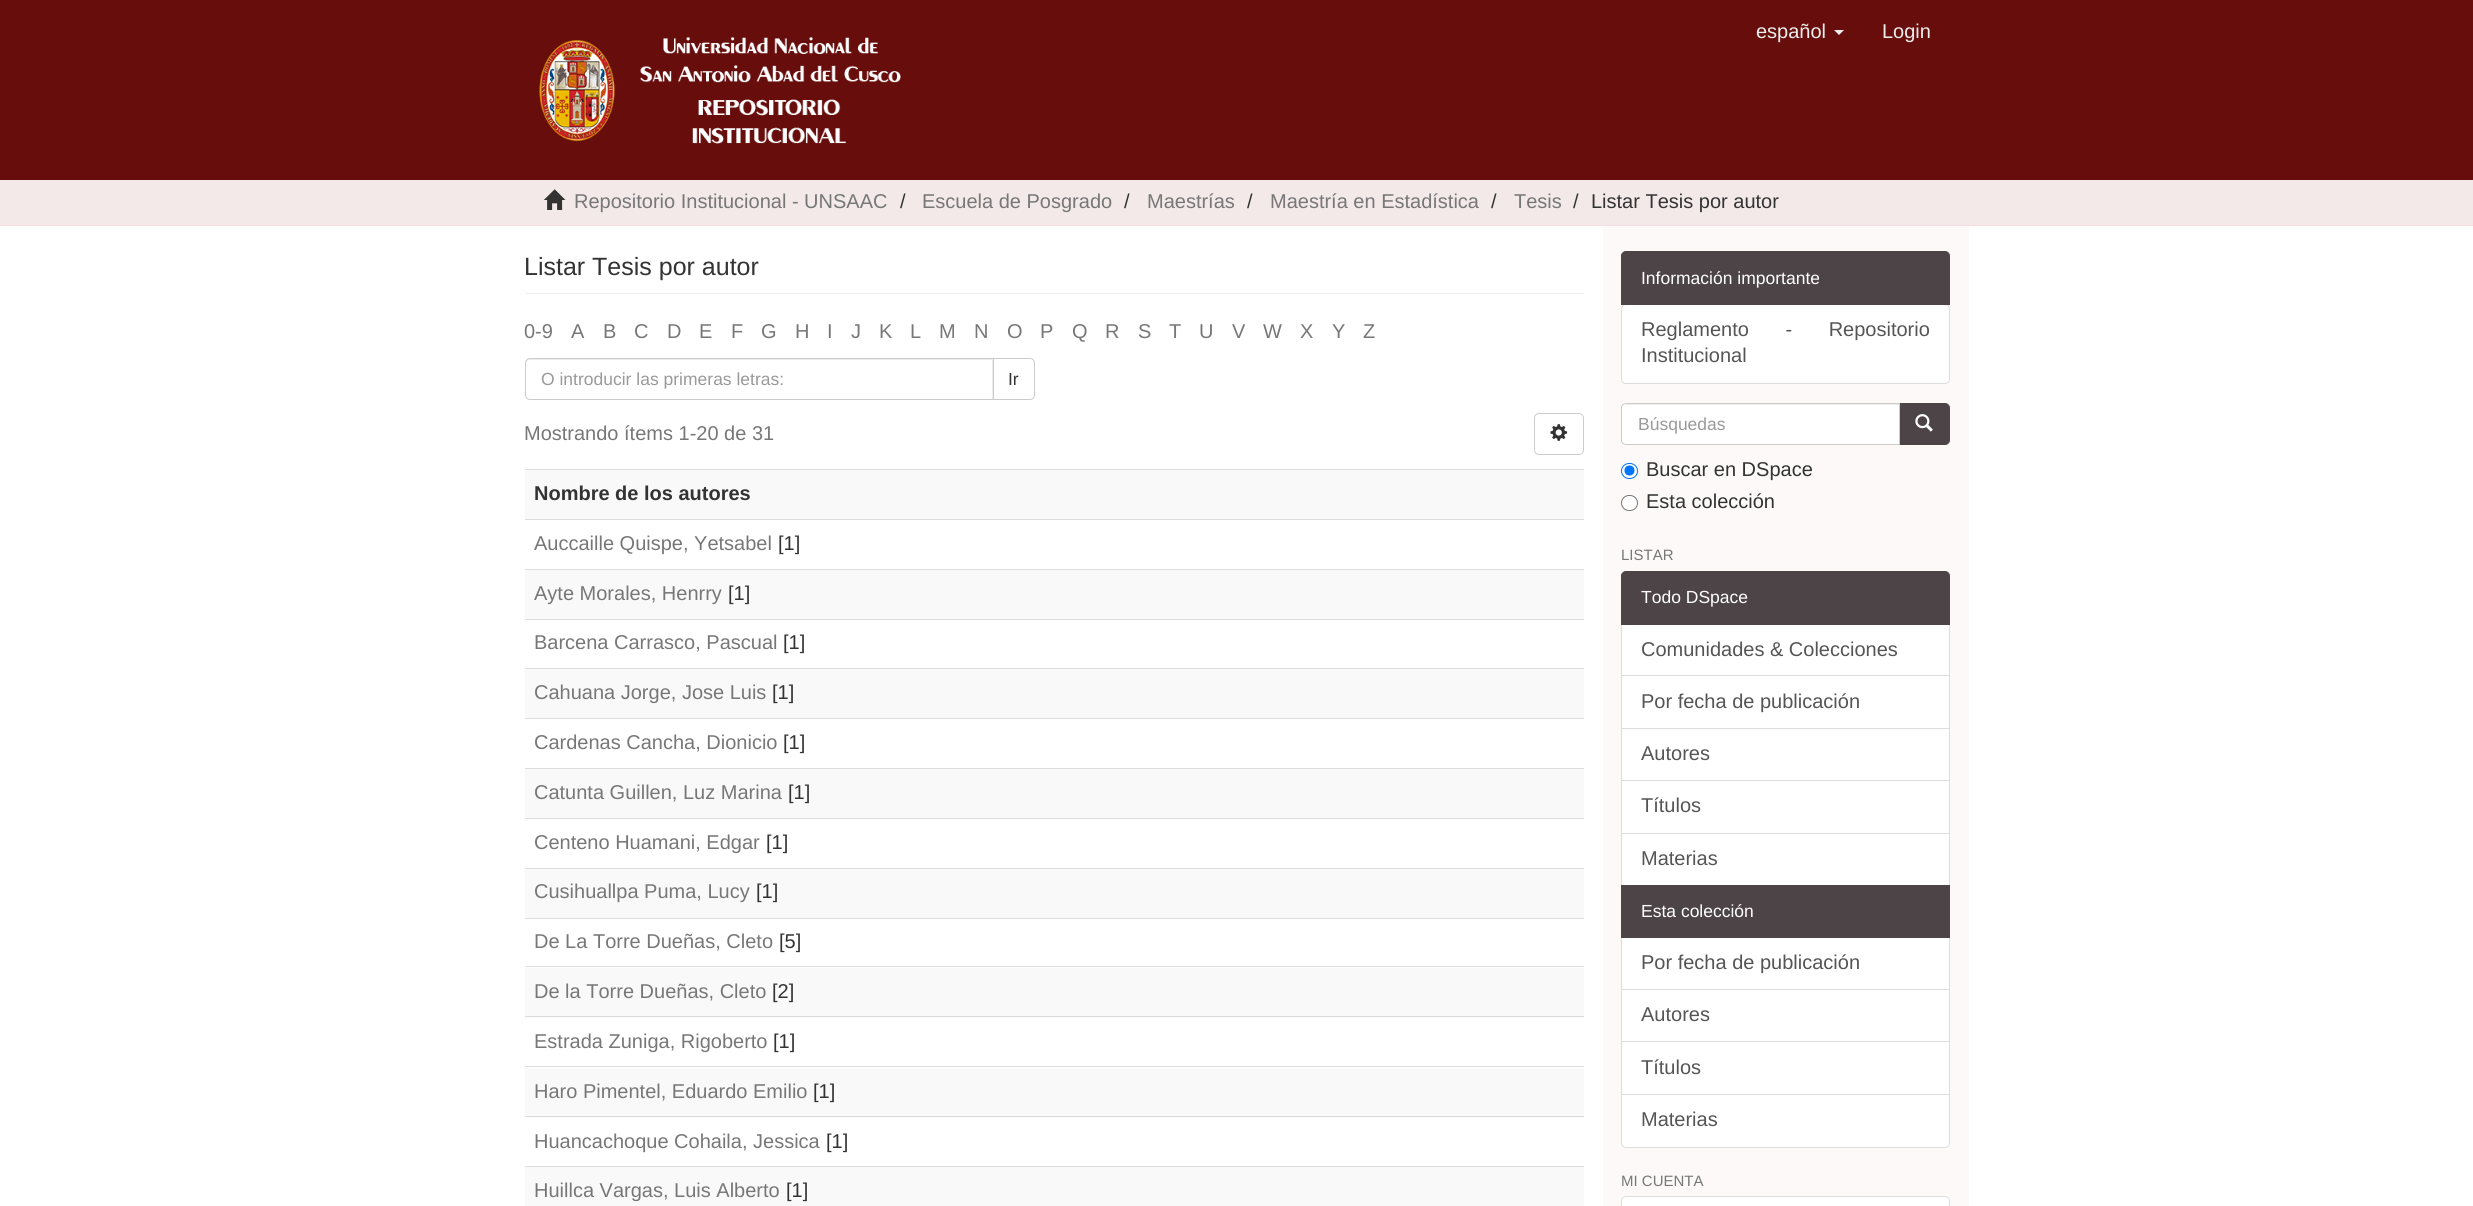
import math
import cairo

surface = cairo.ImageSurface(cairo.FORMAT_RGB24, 2473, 1206)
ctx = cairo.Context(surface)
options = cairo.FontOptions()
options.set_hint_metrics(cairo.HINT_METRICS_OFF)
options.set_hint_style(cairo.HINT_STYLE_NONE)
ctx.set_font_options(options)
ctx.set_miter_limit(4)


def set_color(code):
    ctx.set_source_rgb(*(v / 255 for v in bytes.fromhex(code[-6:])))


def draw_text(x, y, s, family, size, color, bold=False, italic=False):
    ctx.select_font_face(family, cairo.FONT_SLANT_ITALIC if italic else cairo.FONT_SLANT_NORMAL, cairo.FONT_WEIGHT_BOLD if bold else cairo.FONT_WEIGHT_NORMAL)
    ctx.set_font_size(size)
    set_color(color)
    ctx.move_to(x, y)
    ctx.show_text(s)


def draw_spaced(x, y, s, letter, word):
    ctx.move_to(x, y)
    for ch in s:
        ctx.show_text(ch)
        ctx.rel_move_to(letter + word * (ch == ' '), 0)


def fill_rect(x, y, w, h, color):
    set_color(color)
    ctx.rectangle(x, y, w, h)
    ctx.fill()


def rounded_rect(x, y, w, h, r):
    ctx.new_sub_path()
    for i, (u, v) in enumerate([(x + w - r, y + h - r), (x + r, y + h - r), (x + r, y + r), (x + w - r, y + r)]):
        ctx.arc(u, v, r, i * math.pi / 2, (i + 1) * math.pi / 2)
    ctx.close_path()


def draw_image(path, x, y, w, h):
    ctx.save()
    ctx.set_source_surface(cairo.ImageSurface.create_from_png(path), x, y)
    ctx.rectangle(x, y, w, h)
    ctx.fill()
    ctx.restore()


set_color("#ffffff")
ctx.paint()
fill_rect(0, 0, 2473, 180, "#670e0d")
draw_text(1756, 38, "español", "Liberation Sans", 20, "#eeeeee")
ctx.new_path()
ctx.move_to(1834, 30)
ctx.line_to(1844, 30)
ctx.line_to(1839, 35)
ctx.close_path()
ctx.fill()
draw_text(1882, 38, "Login", "Liberation Sans", 20, "#eeeeee")
draw_image("assets/img1.png", 539, 37, 362, 107)
fill_rect(0, 180, 2473, 45, "#f3e9e9")
fill_rect(0, 225, 2473, 1, "#f7dce3")
draw_image("assets/img2.png", 543, 189, 23, 21)
draw_text(574, 208, "Repositorio Institucional - UNSAAC", "Liberation Sans", 20, "#777777")
draw_text(900, 208, "/", "Liberation Sans", 20, "#333333")
draw_text(922, 208, "Escuela de Posgrado", "Liberation Sans", 20, "#777777")
draw_text(1124, 208, "/", "Liberation Sans", 20, "#333333")
draw_text(1147, 208, "Maestrías", "Liberation Sans", 20, "#777777")
draw_text(1247, 208, "/", "Liberation Sans", 20, "#333333")
draw_text(1270, 208, "Maestría en Estadística", "Liberation Sans", 20, "#777777")
draw_text(1491, 208, "/", "Liberation Sans", 20, "#333333")
draw_text(1514, 208, "Tesis", "Liberation Sans", 20, "#777777")
draw_text(1573, 208, "/", "Liberation Sans", 20, "#333333")
draw_text(1591, 208, "Listar Tesis por autor", "Liberation Sans", 20, "#333333")
fill_rect(1603, 226, 366, 980, "#fdf9f9")
fill_rect(525, 293, 1059, 1, "#eeeeee")
draw_text(524, 275, "Listar Tesis por autor", "Liberation Sans", 25, "#333333")
draw_text(524, 338, "0-9", "Liberation Sans", 20, "#777777")
draw_text(571, 338, "A", "Liberation Sans", 20, "#777777")
draw_text(603, 338, "B", "Liberation Sans", 20, "#777777")
draw_text(634, 338, "C", "Liberation Sans", 20, "#777777")
draw_text(667, 338, "D", "Liberation Sans", 20, "#777777")
draw_text(699, 338, "E", "Liberation Sans", 20, "#777777")
draw_text(731, 338, "F", "Liberation Sans", 20, "#777777")
draw_text(761, 338, "G", "Liberation Sans", 20, "#777777")
draw_text(795, 338, "H", "Liberation Sans", 20, "#777777")
draw_text(827, 338, "I", "Liberation Sans", 20, "#777777")
draw_text(851, 338, "J", "Liberation Sans", 20, "#777777")
draw_text(879, 338, "K", "Liberation Sans", 20, "#777777")
draw_text(910, 338, "L", "Liberation Sans", 20, "#777777")
draw_text(939, 338, "M", "Liberation Sans", 20, "#777777")
draw_text(974, 338, "N", "Liberation Sans", 20, "#777777")
draw_text(1007, 338, "O", "Liberation Sans", 20, "#777777")
draw_text(1040, 338, "P", "Liberation Sans", 20, "#777777")
draw_text(1072, 338, "Q", "Liberation Sans", 20, "#777777")
draw_text(1105, 338, "R", "Liberation Sans", 20, "#777777")
draw_text(1138, 338, "S", "Liberation Sans", 20, "#777777")
draw_text(1169, 338, "T", "Liberation Sans", 20, "#777777")
draw_text(1199, 338, "U", "Liberation Sans", 20, "#777777")
draw_text(1232, 338, "V", "Liberation Sans", 20, "#777777")
draw_text(1263, 338, "W", "Liberation Sans", 20, "#777777")
draw_text(1300, 338, "X", "Liberation Sans", 20, "#777777")
draw_text(1332, 338, "Y", "Liberation Sans", 20, "#777777")
draw_text(1363, 338, "Z", "Liberation Sans", 20, "#777777")
ctx.new_path()
ctx.move_to(993.5, 358.5)
ctx.line_to(1030, 358.5)
ctx.curve_to(1032.5, 358.5, 1034.5, 360.5, 1034.5, 363)
ctx.line_to(1034.5, 395)
ctx.curve_to(1034.5, 397.5, 1032.5, 399.5, 1030, 399.5)
ctx.line_to(993.5, 399.5)
ctx.close_path()
set_color("#cccccc")
ctx.set_line_width(1)
ctx.stroke()
set_color("#ffffff")
ctx.new_path()
ctx.move_to(530, 358)
ctx.line_to(994, 358)
ctx.line_to(994, 400)
ctx.line_to(530, 400)
ctx.curve_to(527, 400, 525, 398, 525, 395)
ctx.line_to(525, 363)
ctx.curve_to(525, 360, 527, 358, 530, 358)
ctx.close_path()
ctx.fill()
set_color("#ececec")
ctx.new_path()
ctx.move_to(530, 360)
ctx.line_to(992, 360)
ctx.line_to(992, 399)
ctx.line_to(993, 399)
ctx.line_to(993, 359)
ctx.line_to(530, 359)
ctx.curve_to(527, 359, 526, 361, 526, 364)
ctx.curve_to(526, 362, 528, 360, 530, 360)
ctx.close_path()
ctx.fill()
ctx.new_path()
ctx.move_to(530, 358.5)
ctx.line_to(993.5, 358.5)
ctx.line_to(993.5, 399.5)
ctx.line_to(530, 399.5)
ctx.curve_to(527.5, 399.5, 525.5, 397.5, 525.5, 395)
ctx.line_to(525.5, 363)
ctx.curve_to(525.5, 360.5, 527.5, 358.5, 530, 358.5)
ctx.close_path()
set_color("#cccccc")
ctx.stroke()
draw_text(541, 385, "O introducir las primeras letras:", "Liberation Sans", 17.5, "#999999")
draw_text(1008, 385, "Ir", "Liberation Sans", 17.5, "#333333")
draw_text(524, 440, "Mostrando ítems 1-20 de 31", "Liberation Sans", 20, "#777777")
rounded_rect(1534.5, 413.5, 49, 41, 4.5)
set_color("#cccccc")
ctx.stroke()
draw_image("assets/img3.png", 1550, 424, 18, 17)
fill_rect(525, 470, 1059, 49, "#f9f9f9")
fill_rect(525, 469, 1059, 1, "#dddddd")
draw_text(534, 500, "Nombre de los autores", "Liberation Sans", 20, "#333333", bold=True)
fill_rect(525, 519, 1059, 1, "#dddddd")
draw_text(534, 550, "Auccaille Quispe, Yetsabel", "Liberation Sans", 20, "#777777")
draw_text(778, 550, "[1]", "Liberation Sans", 20, "#333333")
fill_rect(525, 570, 1059, 49, "#f9f9f9")
fill_rect(525, 569, 1059, 1, "#dddddd")
draw_text(534, 600, "Ayte Morales, Henrry", "Liberation Sans", 20, "#777777")
draw_text(728, 600, "[1]", "Liberation Sans", 20, "#333333")
fill_rect(525, 619, 1059, 1, "#dddddd")
draw_text(534, 649, "Barcena Carrasco, Pascual", "Liberation Sans", 20, "#777777")
draw_text(783, 649, "[1]", "Liberation Sans", 20, "#333333")
fill_rect(525, 669, 1059, 49, "#f9f9f9")
fill_rect(525, 668, 1059, 1, "#dddddd")
draw_text(534, 699, "Cahuana Jorge, Jose Luis", "Liberation Sans", 20, "#777777")
draw_text(772, 699, "[1]", "Liberation Sans", 20, "#333333")
fill_rect(525, 718, 1059, 1, "#dddddd")
draw_text(534, 749, "Cardenas Cancha, Dionicio", "Liberation Sans", 20, "#777777")
draw_text(783, 749, "[1]", "Liberation Sans", 20, "#333333")
fill_rect(525, 769, 1059, 49, "#f9f9f9")
fill_rect(525, 768, 1059, 1, "#dddddd")
draw_text(534, 799, "Catunta Guillen, Luz Marina", "Liberation Sans", 20, "#777777")
draw_text(788, 799, "[1]", "Liberation Sans", 20, "#333333")
fill_rect(525, 818, 1059, 1, "#dddddd")
draw_text(534, 849, "Centeno Huamani, Edgar", "Liberation Sans", 20, "#777777")
draw_text(766, 849, "[1]", "Liberation Sans", 20, "#333333")
fill_rect(525, 869, 1059, 49, "#f9f9f9")
fill_rect(525, 868, 1059, 1, "#dddddd")
draw_text(534, 898, "Cusihuallpa Puma, Lucy", "Liberation Sans", 20, "#777777")
draw_text(756, 898, "[1]", "Liberation Sans", 20, "#333333")
fill_rect(525, 918, 1059, 1, "#dddddd")
draw_text(534, 948, "De La Torre Dueñas, Cleto", "Liberation Sans", 20, "#777777")
draw_text(779, 948, "[5]", "Liberation Sans", 20, "#333333")
fill_rect(525, 968, 1059, 50, "#f9f9f9")
fill_rect(525, 966, 1059, 1, "#dddddd")
draw_text(534, 998, "De la Torre Dueñas, Cleto", "Liberation Sans", 20, "#777777")
draw_text(772, 998, "[2]", "Liberation Sans", 20, "#333333")
fill_rect(525, 1016, 1059, 1, "#dddddd")
draw_text(534, 1048, "Estrada Zuniga, Rigoberto", "Liberation Sans", 20, "#777777")
draw_text(773, 1048, "[1]", "Liberation Sans", 20, "#333333")
fill_rect(525, 1068, 1059, 50, "#f9f9f9")
fill_rect(525, 1066, 1059, 1, "#dddddd")
draw_text(534, 1098, "Haro Pimentel, Eduardo Emilio", "Liberation Sans", 20, "#777777")
draw_text(813, 1098, "[1]", "Liberation Sans", 20, "#333333")
fill_rect(525, 1116, 1059, 1, "#dddddd")
draw_text(534, 1148, "Huancachoque Cohaila, Jessica", "Liberation Sans", 20, "#777777")
draw_text(826, 1148, "[1]", "Liberation Sans", 20, "#333333")
fill_rect(525, 1167, 1059, 39, "#f9f9f9")
fill_rect(525, 1166, 1059, 1, "#dddddd")
draw_text(534, 1197, "Huillca Vargas, Luis Alberto", "Liberation Sans", 20, "#777777")
draw_text(786, 1197, "[1]", "Liberation Sans", 20, "#333333")
set_color("#ffffff")
rounded_rect(1621.5, 304.5, 328, 79, 4.5)
ctx.fill_preserve()
set_color("#dddddd")
ctx.stroke()
set_color("#4d4448")
ctx.new_path()
ctx.move_to(1626, 251.5)
ctx.line_to(1945, 251.5)
ctx.curve_to(1947.5, 251.5, 1949.5, 253.5, 1949.5, 256)
ctx.line_to(1949.5, 304.5)
ctx.line_to(1621.5, 304.5)
ctx.line_to(1621.5, 256)
ctx.curve_to(1621.5, 253.5, 1623.5, 251.5, 1626, 251.5)
ctx.close_path()
ctx.fill_preserve()
ctx.stroke()
draw_text(1641, 284, "Información importante", "Liberation Sans", 17.5, "#ffffff")
ctx.set_font_size(20)
set_color("#555555")
draw_spaced(1641, 336, "Reglamento - Repositorio", 0, 31)
draw_text(1641, 362, "Institucional", "Liberation Sans", 20, "#555555")
set_color("#4d4448")
ctx.new_path()
ctx.move_to(1899.5, 403.5)
ctx.line_to(1945, 403.5)
ctx.curve_to(1947.5, 403.5, 1949.5, 405.5, 1949.5, 408)
ctx.line_to(1949.5, 440)
ctx.curve_to(1949.5, 442.5, 1947.5, 444.5, 1945, 444.5)
ctx.line_to(1899.5, 444.5)
ctx.close_path()
ctx.fill_preserve()
ctx.stroke()
set_color("#ffffff")
ctx.new_path()
ctx.move_to(1626, 403)
ctx.line_to(1900, 403)
ctx.line_to(1900, 445)
ctx.line_to(1626, 445)
ctx.curve_to(1623, 445, 1621, 443, 1621, 440)
ctx.line_to(1621, 408)
ctx.curve_to(1621, 405, 1623, 403, 1626, 403)
ctx.close_path()
ctx.fill()
set_color("#ececec")
ctx.new_path()
ctx.move_to(1626, 405)
ctx.line_to(1899, 405)
ctx.line_to(1899, 404)
ctx.line_to(1626, 404)
ctx.line_to(1624, 406)
ctx.close_path()
ctx.fill()
ctx.new_path()
ctx.move_to(1626, 403.5)
ctx.line_to(1899.5, 403.5)
ctx.line_to(1899.5, 444.5)
ctx.line_to(1626, 444.5)
ctx.curve_to(1623.5, 444.5, 1621.5, 442.5, 1621.5, 440)
ctx.line_to(1621.5, 408)
ctx.curve_to(1621.5, 405.5, 1623.5, 403.5, 1626, 403.5)
ctx.close_path()
set_color("#cccccc")
ctx.stroke()
draw_text(1638, 430, "Búsquedas", "Liberation Sans", 17.5, "#999999")
draw_image("assets/img4.png", 1915, 414, 18, 18)
set_color("#ffffff")
rounded_rect(1621.5, 463.5, 16, 15, 7.5)
ctx.fill_preserve()
set_color("#0075ff")
ctx.stroke()
ctx.arc(1629.5, 470.5, 5, 0, 2 * math.pi)
ctx.fill()
draw_text(1646, 476, "Buscar en DSpace", "Liberation Sans", 20, "#333333")
set_color("#ffffff")
rounded_rect(1621.5, 495.5, 16, 15, 7.5)
ctx.fill_preserve()
set_color("#767676")
ctx.stroke()
draw_text(1646, 508, "Esta colección", "Liberation Sans", 20, "#333333")
draw_text(1621, 560, "LISTAR", "Liberation Sans", 15, "#777777")
set_color("#ffffff")
ctx.rectangle(1621.5, 624.5, 328, 51)
ctx.fill_preserve()
set_color("#dddddd")
ctx.stroke()
set_color("#4d4448")
ctx.new_path()
ctx.move_to(1626, 571.5)
ctx.line_to(1945, 571.5)
ctx.curve_to(1947.5, 571.5, 1949.5, 573.5, 1949.5, 576)
ctx.line_to(1949.5, 624.5)
ctx.line_to(1621.5, 624.5)
ctx.line_to(1621.5, 576)
ctx.curve_to(1621.5, 573.5, 1623.5, 571.5, 1626, 571.5)
ctx.close_path()
ctx.fill_preserve()
ctx.stroke()
draw_text(1641, 603, "Todo DSpace", "Liberation Sans", 17.5, "#ffffff")
draw_text(1641, 656, "Comunidades & Colecciones", "Liberation Sans", 20, "#555555")
set_color("#ffffff")
ctx.rectangle(1621.5, 675.5, 328, 53)
ctx.fill_preserve()
set_color("#dddddd")
ctx.stroke()
draw_text(1641, 708, "Por fecha de publicación", "Liberation Sans", 20, "#555555")
set_color("#ffffff")
ctx.rectangle(1621.5, 728.5, 328, 52)
ctx.fill_preserve()
set_color("#dddddd")
ctx.stroke()
draw_text(1641, 760, "Autores", "Liberation Sans", 20, "#555555")
set_color("#ffffff")
ctx.rectangle(1621.5, 780.5, 328, 53)
ctx.fill_preserve()
set_color("#dddddd")
ctx.stroke()
draw_text(1641, 812, "Títulos", "Liberation Sans", 20, "#555555")
set_color("#ffffff")
ctx.rectangle(1621.5, 833.5, 328, 52)
ctx.fill_preserve()
set_color("#dddddd")
ctx.stroke()
draw_text(1641, 865, "Materias", "Liberation Sans", 20, "#555555")
fill_rect(1622, 938, 327, 51, "#ffffff")
ctx.rectangle(1621.5, 936.5, 328, 53)
set_color("#dddddd")
ctx.stroke()
fill_rect(1621, 885, 329, 53, "#4d4448")
draw_text(1641, 917, "Esta colección", "Liberation Sans", 17.5, "#ffffff")
draw_text(1641, 969, "Por fecha de publicación", "Liberation Sans", 20, "#555555")
fill_rect(1622, 990, 327, 51, "#ffffff")
ctx.rectangle(1621.5, 989.5, 328, 53)
set_color("#dddddd")
ctx.stroke()
draw_text(1641, 1021, "Autores", "Liberation Sans", 20, "#555555")
set_color("#ffffff")
ctx.rectangle(1621.5, 1041.5, 328, 53)
ctx.fill_preserve()
set_color("#dddddd")
ctx.stroke()
draw_text(1641, 1074, "Títulos", "Liberation Sans", 20, "#555555")
set_color("#ffffff")
ctx.new_path()
ctx.move_to(1621.5, 1094.5)
ctx.line_to(1949.5, 1094.5)
ctx.line_to(1949.5, 1143)
ctx.curve_to(1949.5, 1145.5, 1947.5, 1147.5, 1945, 1147.5)
ctx.line_to(1626, 1147.5)
ctx.curve_to(1623.5, 1147.5, 1621.5, 1145.5, 1621.5, 1143)
ctx.close_path()
ctx.fill_preserve()
set_color("#dddddd")
ctx.stroke()
draw_text(1641, 1126, "Materias", "Liberation Sans", 20, "#555555")
draw_text(1621, 1186, "MI CUENTA", "Liberation Sans", 15, "#777777")
set_color("#ffffff")
ctx.new_path()
ctx.move_to(1626, 1196.5)
ctx.line_to(1945, 1196.5)
ctx.curve_to(1947.5, 1196.5, 1949.5, 1198.5, 1949.5, 1201)
ctx.line_to(1949.5, 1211.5)
ctx.line_to(1621.5, 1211.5)
ctx.line_to(1621.5, 1201)
ctx.curve_to(1621.5, 1198.5, 1623.5, 1196.5, 1626, 1196.5)
ctx.close_path()
ctx.fill_preserve()
set_color("#dddddd")
ctx.stroke()
surface.write_to_png("output.png")
